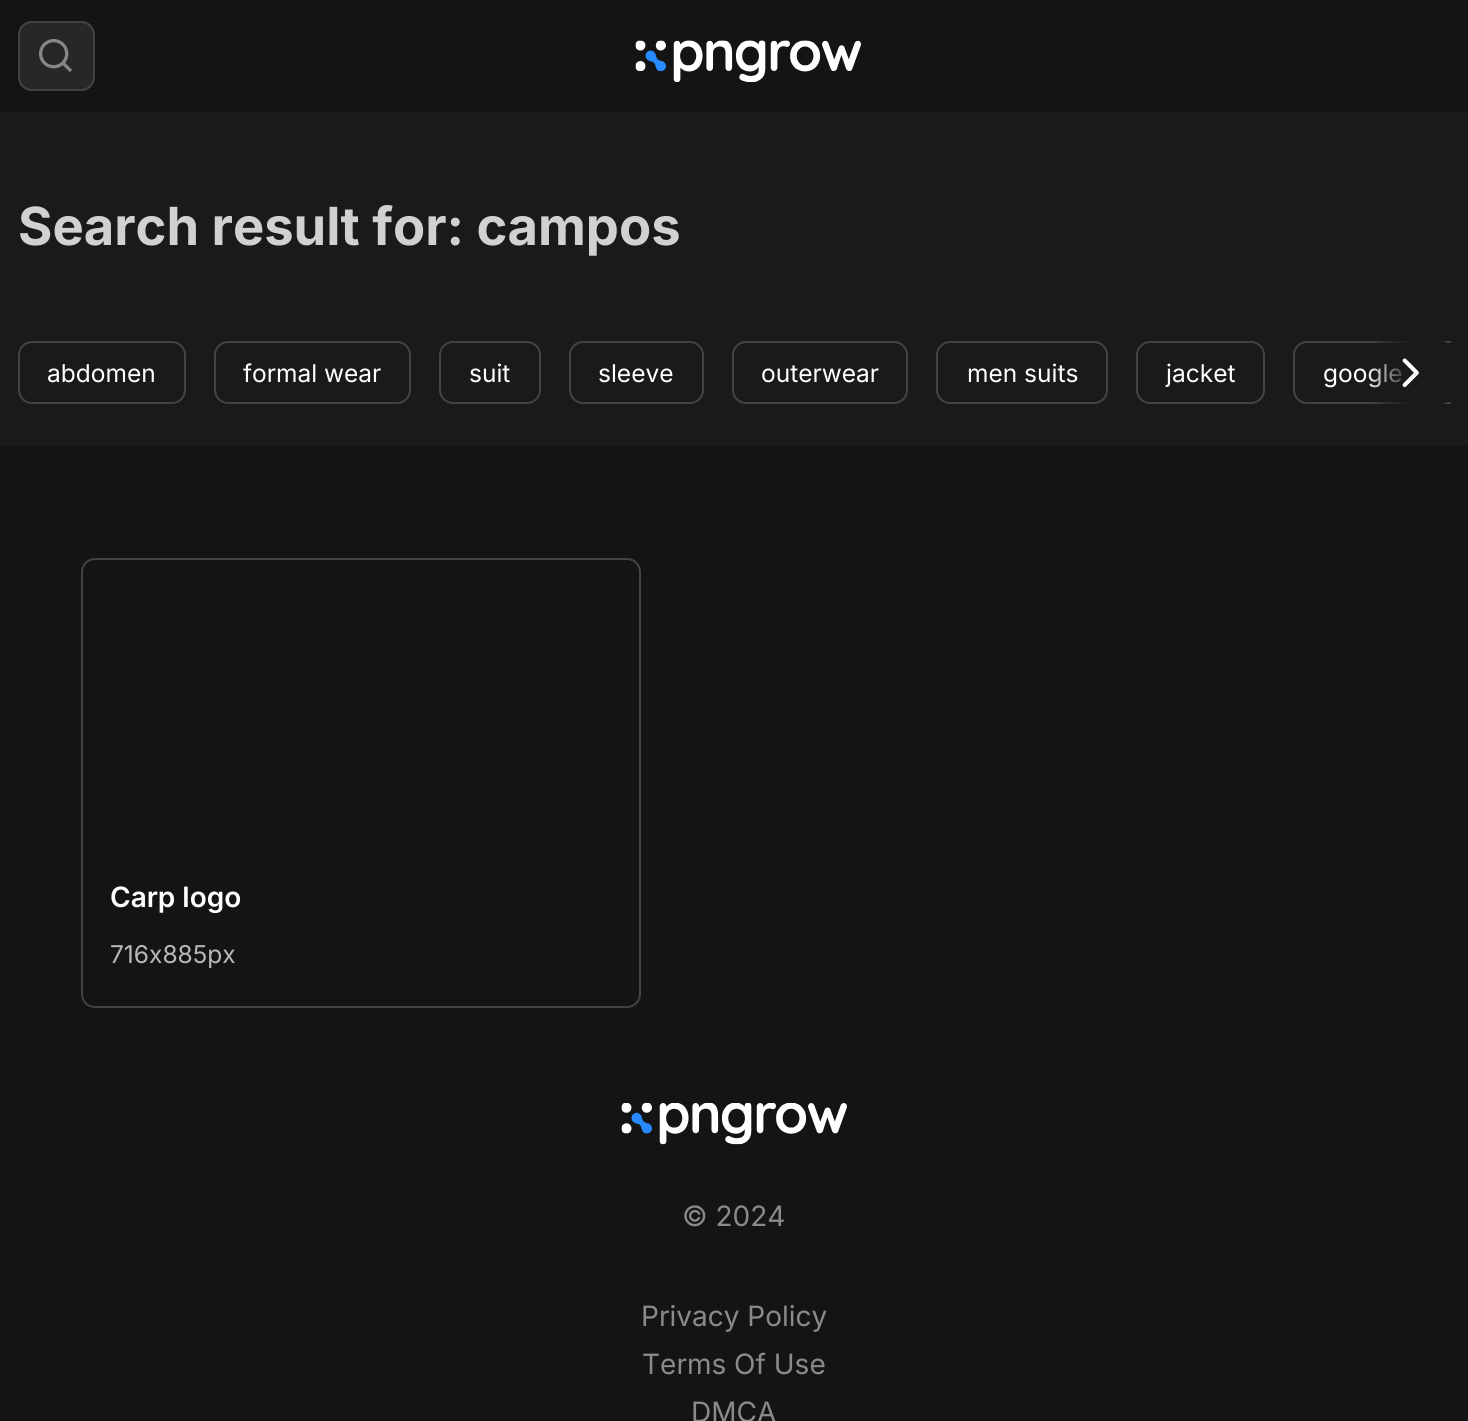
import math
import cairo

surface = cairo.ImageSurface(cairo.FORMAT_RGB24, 1468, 1421)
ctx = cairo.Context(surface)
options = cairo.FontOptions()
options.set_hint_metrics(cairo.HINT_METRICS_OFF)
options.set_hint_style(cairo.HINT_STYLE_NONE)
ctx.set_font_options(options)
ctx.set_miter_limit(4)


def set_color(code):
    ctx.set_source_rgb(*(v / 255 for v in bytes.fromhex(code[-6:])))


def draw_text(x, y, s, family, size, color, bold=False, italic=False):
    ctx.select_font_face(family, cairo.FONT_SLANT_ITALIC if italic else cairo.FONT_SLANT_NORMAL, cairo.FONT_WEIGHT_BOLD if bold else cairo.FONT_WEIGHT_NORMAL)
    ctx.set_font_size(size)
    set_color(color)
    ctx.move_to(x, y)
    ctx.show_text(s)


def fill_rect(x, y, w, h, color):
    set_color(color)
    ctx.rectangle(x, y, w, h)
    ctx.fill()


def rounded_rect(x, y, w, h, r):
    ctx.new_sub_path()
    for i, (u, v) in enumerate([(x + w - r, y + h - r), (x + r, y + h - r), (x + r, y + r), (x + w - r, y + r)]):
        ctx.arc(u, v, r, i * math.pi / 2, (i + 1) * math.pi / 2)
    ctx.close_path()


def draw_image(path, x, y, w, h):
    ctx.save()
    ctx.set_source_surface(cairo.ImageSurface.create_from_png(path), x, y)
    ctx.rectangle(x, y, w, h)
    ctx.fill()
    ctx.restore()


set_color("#141414")
ctx.paint()
set_color("#272727")
rounded_rect(18, 21, 77, 70, 14)
ctx.fill()
draw_image("assets/img1.png", 39, 39, 33, 33)
rounded_rect(19, 22, 75, 68, 13)
set_color("#434343")
ctx.stroke()
draw_image("assets/img2.png", 635, 40, 226, 42)
fill_rect(0, 112, 1468, 334, "#1a1a1a")
draw_text(18, 245, "Search result for: campos", "Inter", 52.5, "#d1d1d1", bold=True)
rounded_rect(19, 342, 166, 61, 13)
set_color("#434343")
ctx.stroke()
draw_text(47, 382, "abdomen", "Inter", 24.5, "#ffffff")
rounded_rect(215, 342, 195, 61, 13)
set_color("#434343")
ctx.stroke()
draw_text(243, 382, "formal wear", "Inter", 24.5, "#ffffff")
rounded_rect(440, 342, 100, 61, 13)
set_color("#434343")
ctx.stroke()
draw_text(469, 382, "suit", "Inter", 24.5, "#ffffff")
rounded_rect(570, 342, 133, 61, 13)
set_color("#434343")
ctx.stroke()
draw_text(598, 382, "sleeve", "Inter", 24.5, "#ffffff")
rounded_rect(733, 342, 174, 61, 13)
set_color("#434343")
ctx.stroke()
draw_text(761, 382, "outerwear", "Inter", 24.5, "#ffffff")
rounded_rect(937, 342, 170, 61, 13)
set_color("#434343")
ctx.stroke()
draw_text(967, 382, "men suits", "Inter", 24.5, "#ffffff")
rounded_rect(1137, 342, 127, 61, 13)
set_color("#434343")
ctx.stroke()
draw_text(1166, 382, "jacket", "Inter", 24.5, "#ffffff")
ctx.save()
ctx.rectangle(18, 341, 1433, 63)
ctx.clip()
rounded_rect(1294, 342, 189, 61, 13)
set_color("#434343")
ctx.stroke()
ctx.restore()
draw_text(1323, 382, "google", "Inter", 24.5, "#ffffff")
gradient = cairo.LinearGradient(1454, 373, 1367, 373)
gradient.add_color_stop_rgba(0.5, 0.102, 0.102, 0.102, 1)
gradient.add_color_stop_rgba(1, 0.102, 0.102, 0.102, 0)
ctx.set_source(gradient)
rounded_rect(1367, 341, 87, 63, 14)
ctx.fill()
draw_image("assets/img3.png", 1402, 358, 17, 29)
rounded_rect(82, 559, 558, 448, 13)
set_color("#434343")
ctx.stroke()
draw_text(110, 907, "Carp logo", "Inter SemiBold", 28, "#ffffff")
draw_text(110, 963, "716x885px", "Inter", 24.5, "#b8b8b8")
draw_image("assets/img4.png", 621, 1103, 226, 42)
draw_text(682, 1226, "© 2024", "Inter", 28, "#8a8a8a")
draw_text(641, 1326, "Privacy Policy", "Inter", 28, "#8a8a8a")
draw_text(642, 1374, "Terms Of Use", "Inter", 28, "#8a8a8a")
draw_text(691, 1422, "DMCA", "Inter", 28, "#8a8a8a")
surface.write_to_png("output.png")
